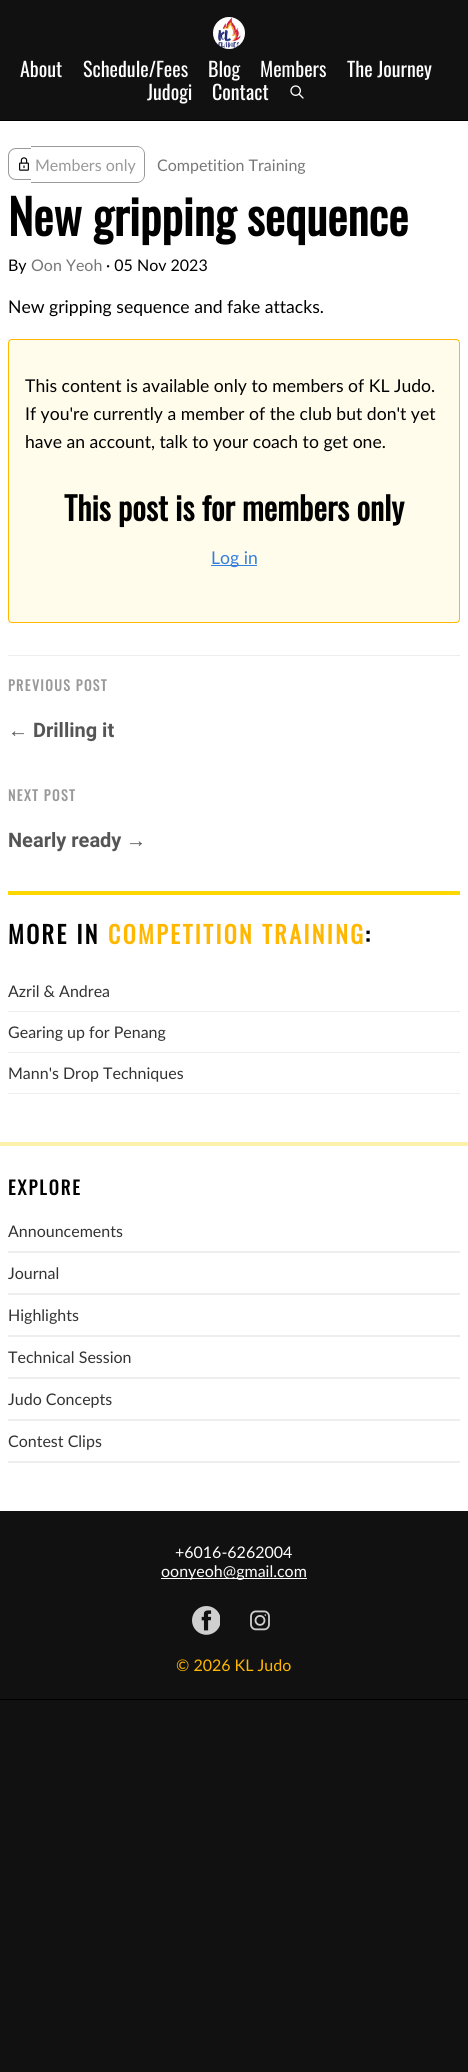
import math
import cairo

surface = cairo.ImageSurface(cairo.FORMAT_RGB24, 468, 2072)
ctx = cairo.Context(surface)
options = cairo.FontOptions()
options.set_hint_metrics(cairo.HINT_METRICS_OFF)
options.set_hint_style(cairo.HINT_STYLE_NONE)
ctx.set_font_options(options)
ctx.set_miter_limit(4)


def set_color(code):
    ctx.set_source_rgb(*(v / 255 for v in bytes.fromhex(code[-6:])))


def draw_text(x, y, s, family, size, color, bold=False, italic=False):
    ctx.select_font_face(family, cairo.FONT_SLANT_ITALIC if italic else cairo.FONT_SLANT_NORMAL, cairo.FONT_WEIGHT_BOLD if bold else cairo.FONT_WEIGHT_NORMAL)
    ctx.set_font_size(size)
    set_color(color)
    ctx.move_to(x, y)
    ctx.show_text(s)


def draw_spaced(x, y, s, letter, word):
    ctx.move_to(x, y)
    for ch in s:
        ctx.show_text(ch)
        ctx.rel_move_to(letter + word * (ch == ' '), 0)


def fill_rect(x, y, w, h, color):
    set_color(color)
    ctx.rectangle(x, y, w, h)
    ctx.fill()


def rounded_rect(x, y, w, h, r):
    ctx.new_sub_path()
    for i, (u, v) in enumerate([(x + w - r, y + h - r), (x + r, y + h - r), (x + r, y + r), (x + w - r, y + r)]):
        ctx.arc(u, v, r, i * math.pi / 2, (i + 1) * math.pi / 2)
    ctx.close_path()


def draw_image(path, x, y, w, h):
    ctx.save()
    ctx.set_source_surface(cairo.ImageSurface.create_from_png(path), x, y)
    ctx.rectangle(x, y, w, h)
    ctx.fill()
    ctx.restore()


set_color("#ffffff")
ctx.paint()
fill_rect(0, 0, 468, 120, "#111111")
fill_rect(0, 120, 468, 1, "#000000")
draw_image("assets/img1.png", 213, 17, 32, 32)
draw_text(20, 77, "About", "Oswald", 20, "#ffffff")
draw_text(83, 77, "Schedule/Fees", "Oswald", 20, "#ffffff")
draw_text(208, 77, "Blog", "Oswald", 20, "#ffffff")
draw_text(260, 77, "Members", "Oswald", 20, "#ffffff")
draw_text(347, 77, "The Journey", "Oswald", 20, "#ffffff")
draw_text(147, 100, "Judogi", "Oswald", 20, "#ffffff")
draw_text(212, 100, "Contact", "Oswald", 20, "#ffffff")
draw_image("assets/img2.png", 290, 85, 14, 14)
set_color("#999999")
ctx.set_fill_rule(cairo.FILL_RULE_EVEN_ODD)
ctx.new_path()
ctx.move_to(16, 148)
ctx.line_to(31, 148)
ctx.line_to(31, 180)
ctx.line_to(16, 180)
ctx.curve_to(11.5, 180, 8, 176.5, 8, 172)
ctx.line_to(8, 156)
ctx.curve_to(8, 151.5, 11.5, 148, 16, 148)
ctx.close_path()
ctx.move_to(16, 149)
ctx.line_to(31, 149)
ctx.line_to(31, 179)
ctx.line_to(16, 179)
ctx.curve_to(12, 179, 9, 176, 9, 172)
ctx.line_to(9, 156)
ctx.curve_to(9, 152, 12, 149, 16, 149)
ctx.close_path()
ctx.fill()
draw_image("assets/img3.png", 19, 157, 10, 14)
ctx.new_path()
ctx.move_to(31, 146)
ctx.line_to(137, 146)
ctx.curve_to(141, 146, 145, 150, 145, 154)
ctx.line_to(145, 175)
ctx.curve_to(145, 179, 141, 183, 137, 183)
ctx.line_to(31, 183)
ctx.close_path()
ctx.move_to(31, 147)
ctx.line_to(137, 147)
ctx.curve_to(141, 147, 144, 150, 144, 154)
ctx.line_to(144, 175)
ctx.curve_to(144, 179, 141, 182, 137, 182)
ctx.line_to(31, 182)
ctx.close_path()
ctx.fill()
draw_text(35, 171, "Members only", "Lato", 16, "#999999")
draw_text(157, 171, "Competition Training", "Lato", 16, "#777777")
draw_text(8, 236, "New gripping sequence", "Oswald", 48, "#000000", bold=True)
draw_text(8, 271, "By", "Lato", 16, "#000000")
draw_text(31, 271, "Oon Yeoh", "Lato", 16, "#777777")
draw_text(106, 271, "· 05 Nov 2023", "Lato", 16, "#000000")
draw_text(8, 313, "New gripping sequence and fake attacks.", "Lato", 17.6, "#000000")
set_color("#fffceb")
rounded_rect(8.5, 339.5, 451, 283, 3.5)
ctx.fill_preserve()
set_color("#ffb700")
ctx.set_line_width(1)
ctx.stroke()
draw_text(25, 392, "This content is available only to members of KL Judo.", "Lato", 17.6, "#000000")
draw_text(25, 420, "If you're currently a member of the club but don't yet", "Lato", 17.6, "#000000")
draw_text(25, 448, "have an account, talk to your coach to get one.", "Lato", 17.6, "#000000")
draw_text(64, 521, "This post is for members only", "Oswald", 32, "#000000", bold=True)
fill_rect(211, 565, 46, 1, "#357edd")
draw_text(211, 564, "Log in", "Lato", 17.6, "#357edd")
fill_rect(8, 655, 452, 1, "#eeeeee")
ctx.select_font_face("Oswald", cairo.FONT_SLANT_NORMAL, cairo.FONT_WEIGHT_BOLD)
ctx.set_font_size(14)
set_color("#999999")
draw_spaced(8, 691, "PREVIOUS POST", 1.4, 0)
draw_text(8, 737, "←", "Liberation Sans", 20, "#555555", bold=True)
draw_text(33, 737, "Drilling it", "Roboto", 20, "#555555", bold=True)
ctx.select_font_face("Oswald", cairo.FONT_SLANT_NORMAL, cairo.FONT_WEIGHT_BOLD)
ctx.set_font_size(14)
set_color("#999999")
draw_spaced(8, 801, "NEXT POST", 1.4, 0)
draw_text(8, 847, "Nearly ready", "Roboto", 20, "#555555", bold=True)
draw_text(126, 847, "→", "Liberation Sans", 20, "#555555", bold=True)
fill_rect(8, 891, 452, 4, "#ffd700")
ctx.select_font_face("Oswald", cairo.FONT_SLANT_NORMAL, cairo.FONT_WEIGHT_BOLD)
ctx.set_font_size(24)
set_color("#000000")
draw_spaced(8, 944, "MORE IN", 2.4, 0)
set_color("#ffb700")
draw_spaced(108, 944, "COMPETITION TRAINING", 2.4, 0)
set_color("#000000")
draw_spaced(365, 944, ":", 2.4, 0)
fill_rect(8, 1011, 452, 1, "#eeeeee")
draw_text(8, 997, "Azril & Andrea", "Lato", 16, "#333333")
fill_rect(8, 1052, 452, 1, "#eeeeee")
draw_text(8, 1038, "Gearing up for Penang", "Lato", 16, "#333333")
fill_rect(8, 1093, 452, 1, "#eeeeee")
draw_text(8, 1079, "Mann's Drop Techniques", "Lato", 16, "#333333")
fill_rect(0, 1142, 468, 4, "#fbf1a9")
ctx.select_font_face("Oswald", cairo.FONT_SLANT_NORMAL, cairo.FONT_WEIGHT_BOLD)
ctx.set_font_size(18.5)
set_color("#000000")
draw_spaced(8, 1195, "EXPLORE", 2, 0)
fill_rect(8, 1251, 452, 2, "#eeeeee")
draw_text(8, 1237, "Announcements", "Lato", 16, "#333333")
fill_rect(8, 1293, 452, 2, "#eeeeee")
draw_text(8, 1279, "Journal", "Lato", 16, "#333333")
fill_rect(8, 1335, 452, 2, "#eeeeee")
draw_text(8, 1321, "Highlights", "Lato", 16, "#333333")
fill_rect(8, 1377, 452, 2, "#eeeeee")
draw_text(8, 1363, "Technical Session", "Lato", 16, "#333333")
fill_rect(8, 1419, 452, 2, "#eeeeee")
draw_text(8, 1405, "Judo Concepts", "Lato", 16, "#333333")
fill_rect(8, 1461, 452, 2, "#eeeeee")
draw_text(8, 1447, "Contest Clips", "Lato", 16, "#333333")
set_color("#111111")
ctx.set_fill_rule(cairo.FILL_RULE_WINDING)
ctx.new_path()
ctx.move_to(-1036, 1511)
ctx.line_to(-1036, 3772)
ctx.line_to(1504, 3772)
ctx.line_to(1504, 1511)
ctx.line_to(468, 1511)
ctx.line_to(468, 1700)
ctx.line_to(0, 1700)
ctx.line_to(0, 1511)
ctx.close_path()
ctx.fill()
fill_rect(0, 1511, 468, 188, "#111111")
fill_rect(0, 1699, 468, 1, "#000000")
draw_text(175, 1558, "+6016-6262004", "Lato", 16, "#ffffff")
fill_rect(161, 1578, 146, 1, "#ffffff")
draw_text(161, 1577, "oonyeoh@gmail.com", "Lato", 16, "#ffffff")
draw_image("assets/img4.png", 192, 1606, 28, 29)
draw_image("assets/img5.png", 250, 1610, 20, 21)
draw_text(176, 1671, "© 2026 KL Judo", "Lato", 16, "#ffb700")
surface.write_to_png("output.png")
